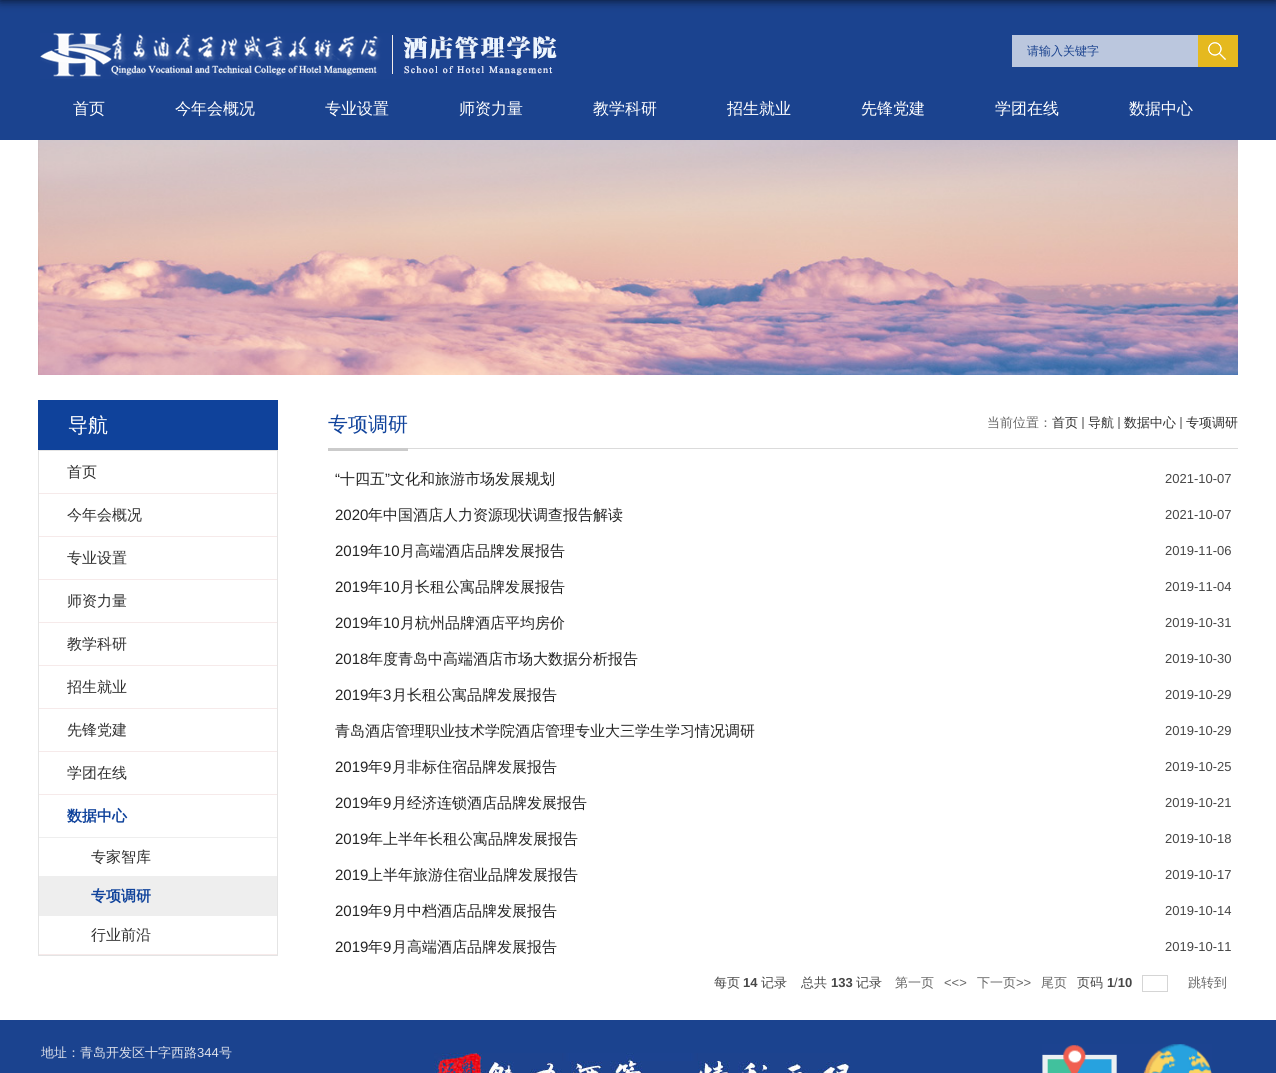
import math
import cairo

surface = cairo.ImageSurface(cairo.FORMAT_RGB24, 1276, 1073)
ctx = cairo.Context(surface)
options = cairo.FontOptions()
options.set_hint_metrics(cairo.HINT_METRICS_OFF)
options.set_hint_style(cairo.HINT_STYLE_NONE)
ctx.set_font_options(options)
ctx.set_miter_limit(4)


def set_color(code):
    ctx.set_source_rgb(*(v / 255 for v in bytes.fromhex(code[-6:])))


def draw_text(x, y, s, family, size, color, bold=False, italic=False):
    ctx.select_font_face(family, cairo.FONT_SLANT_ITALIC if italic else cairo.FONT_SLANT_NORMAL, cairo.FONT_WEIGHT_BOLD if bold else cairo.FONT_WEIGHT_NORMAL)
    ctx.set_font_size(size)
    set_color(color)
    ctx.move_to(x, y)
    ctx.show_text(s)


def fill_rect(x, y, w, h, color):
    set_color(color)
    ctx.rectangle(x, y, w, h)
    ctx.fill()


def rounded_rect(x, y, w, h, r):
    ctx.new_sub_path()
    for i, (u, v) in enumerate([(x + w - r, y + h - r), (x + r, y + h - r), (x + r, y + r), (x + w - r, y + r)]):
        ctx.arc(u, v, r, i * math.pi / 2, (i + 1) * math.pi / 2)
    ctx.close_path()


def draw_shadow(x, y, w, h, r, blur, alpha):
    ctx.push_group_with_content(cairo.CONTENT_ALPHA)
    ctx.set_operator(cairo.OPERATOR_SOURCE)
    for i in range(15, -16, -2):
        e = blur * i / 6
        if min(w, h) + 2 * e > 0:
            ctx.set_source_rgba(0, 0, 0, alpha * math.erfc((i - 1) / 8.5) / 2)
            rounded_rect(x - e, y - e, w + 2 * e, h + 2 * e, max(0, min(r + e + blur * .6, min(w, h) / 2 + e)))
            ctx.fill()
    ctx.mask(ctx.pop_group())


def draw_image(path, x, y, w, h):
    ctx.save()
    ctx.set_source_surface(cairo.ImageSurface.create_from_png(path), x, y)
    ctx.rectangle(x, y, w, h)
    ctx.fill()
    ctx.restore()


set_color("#ffffff")
ctx.paint()
fill_rect(0, 0, 1276, 140, "#1b438f")
set_color("#000000")
draw_shadow(0, -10, 1276, 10, 0, 5, 0.8)
draw_image("assets/img1.png", 40, 33, 517, 46)
fill_rect(1012, 35, 186, 32, "#bbc7de")
draw_text(1027, 55, "请输入关键字", "WenQuanYi Zen Hei Medium", 12, "#1b438f")
fill_rect(1198, 35, 40, 32, "#e5b91f")
draw_image("assets/img2.png", 1208, 42, 18, 18)
draw_text(73, 114, "首页", "WenQuanYi Zen Hei Medium", 16, "#ffffff")
draw_text(175, 114, "今年会概况", "WenQuanYi Zen Hei Medium", 16, "#ffffff")
draw_text(325, 114, "专业设置", "WenQuanYi Zen Hei Medium", 16, "#ffffff")
draw_text(459, 114, "师资力量", "WenQuanYi Zen Hei Medium", 16, "#ffffff")
draw_text(593, 114, "教学科研", "WenQuanYi Zen Hei Medium", 16, "#ffffff")
draw_text(727, 114, "招生就业", "WenQuanYi Zen Hei Medium", 16, "#ffffff")
draw_text(861, 114, "先锋党建", "WenQuanYi Zen Hei Medium", 16, "#ffffff")
draw_text(995, 114, "学团在线", "WenQuanYi Zen Hei Medium", 16, "#ffffff")
draw_text(1129, 114, "数据中心", "WenQuanYi Zen Hei Medium", 16, "#ffffff")
draw_image("assets/img3.png", 38, 140, 1200, 235)
fill_rect(38, 400, 240, 50, "#0f429b")
draw_text(68, 432, "导航", "WenQuanYi Zen Hei Medium", 20, "#ffffff")
ctx.rectangle(38.5, 450.5, 239, 505)
set_color("#e4e4e4")
ctx.set_line_width(1)
ctx.stroke()
fill_rect(39, 493, 238, 1, "#f6eaea")
draw_text(67, 477, "首页", "WenQuanYi Zen Hei Medium", 15, "#2f2f2f")
fill_rect(39, 536, 238, 1, "#f6eaea")
draw_text(67, 520, "今年会概况", "WenQuanYi Zen Hei Medium", 15, "#2f2f2f")
fill_rect(39, 579, 238, 1, "#f6eaea")
draw_text(67, 563, "专业设置", "WenQuanYi Zen Hei Medium", 15, "#2f2f2f")
fill_rect(39, 622, 238, 1, "#f6eaea")
draw_text(67, 606, "师资力量", "WenQuanYi Zen Hei Medium", 15, "#2f2f2f")
fill_rect(39, 665, 238, 1, "#f6eaea")
draw_text(67, 649, "教学科研", "WenQuanYi Zen Hei Medium", 15, "#2f2f2f")
fill_rect(39, 708, 238, 1, "#f6eaea")
draw_text(67, 692, "招生就业", "WenQuanYi Zen Hei Medium", 15, "#2f2f2f")
fill_rect(39, 751, 238, 1, "#f6eaea")
draw_text(67, 735, "先锋党建", "WenQuanYi Zen Hei Medium", 15, "#2f2f2f")
fill_rect(39, 794, 238, 1, "#f6eaea")
draw_text(67, 778, "学团在线", "WenQuanYi Zen Hei Medium", 15, "#2f2f2f")
draw_text(67, 821, "数据中心", "WenQuanYi Zen Hei", 15, "#0f429b", bold=True)
fill_rect(39, 837, 238, 1, "#eeeeee")
draw_text(91, 862, "专家智库", "WenQuanYi Zen Hei Medium", 15, "#2f2f2f")
fill_rect(39, 876, 238, 40, "#eeeeee")
draw_text(91, 901, "专项调研", "WenQuanYi Zen Hei", 15, "#0f429b", bold=True)
fill_rect(39, 954, 238, 1, "#f6eaea")
draw_text(91, 940, "行业前沿", "WenQuanYi Zen Hei Medium", 15, "#2f2f2f")
fill_rect(408, 448, 830, 1, "#dbdbdb")
fill_rect(328, 448, 80, 3, "#cbcbcb")
draw_text(328, 431, "专项调研", "WenQuanYi Zen Hei Medium", 20, "#0f429b")
draw_text(987, 427, "当前位置：", "WenQuanYi Zen Hei Medium", 13, "#666666")
draw_text(1052, 427, "首页", "WenQuanYi Zen Hei Medium", 13, "#2f2f2f")
fill_rect(1082, 417, 2, 12, "#a2a2a2")
draw_text(1088, 427, "导航", "WenQuanYi Zen Hei Medium", 13, "#2f2f2f")
fill_rect(1118, 417, 2, 12, "#a2a2a2")
draw_text(1124, 427, "数据中心", "WenQuanYi Zen Hei Medium", 13, "#2f2f2f")
fill_rect(1180, 417, 2, 12, "#a2a2a2")
draw_text(1186, 427, "专项调研", "WenQuanYi Zen Hei Medium", 13, "#2f2f2f")
draw_text(335, 484, "“", "Liberation Sans", 15, "#232323")
draw_text(340, 484, "十四五", "WenQuanYi Zen Hei Medium", 15, "#232323")
draw_text(385, 484, "”", "Liberation Sans", 15, "#232323")
draw_text(390, 484, "文化和旅游市场发展规划", "WenQuanYi Zen Hei Medium", 15, "#232323")
draw_text(1165, 483, "2021-10-07", "Liberation Sans", 13, "#464646")
draw_text(335, 520, "2020", "Liberation Sans", 15, "#232323")
draw_text(368, 520, "年中国酒店人力资源现状调查报告解读", "WenQuanYi Zen Hei Medium", 15, "#232323")
draw_text(1165, 519, "2021-10-07", "Liberation Sans", 13, "#464646")
draw_text(335, 556, "2019", "Liberation Sans", 15, "#232323")
draw_text(368, 556, "年", "WenQuanYi Zen Hei Medium", 15, "#232323")
draw_text(383, 556, "10", "Liberation Sans", 15, "#232323")
draw_text(400, 556, "月高端酒店品牌发展报告", "WenQuanYi Zen Hei Medium", 15, "#232323")
draw_text(1165, 555, "2019-11-06", "Liberation Sans", 13, "#464646")
draw_text(335, 592, "2019", "Liberation Sans", 15, "#232323")
draw_text(368, 592, "年", "WenQuanYi Zen Hei Medium", 15, "#232323")
draw_text(383, 592, "10", "Liberation Sans", 15, "#232323")
draw_text(400, 592, "月长租公寓品牌发展报告", "WenQuanYi Zen Hei Medium", 15, "#232323")
draw_text(1165, 591, "2019-11-04", "Liberation Sans", 13, "#464646")
draw_text(335, 628, "2019", "Liberation Sans", 15, "#232323")
draw_text(368, 628, "年", "WenQuanYi Zen Hei Medium", 15, "#232323")
draw_text(383, 628, "10", "Liberation Sans", 15, "#232323")
draw_text(400, 628, "月杭州品牌酒店平均房价", "WenQuanYi Zen Hei Medium", 15, "#232323")
draw_text(1165, 627, "2019-10-31", "Liberation Sans", 13, "#464646")
draw_text(335, 664, "2018", "Liberation Sans", 15, "#232323")
draw_text(368, 664, "年度青岛中高端酒店市场大数据分析报告", "WenQuanYi Zen Hei Medium", 15, "#232323")
draw_text(1165, 663, "2019-10-30", "Liberation Sans", 13, "#464646")
draw_text(335, 700, "2019", "Liberation Sans", 15, "#232323")
draw_text(368, 700, "年", "WenQuanYi Zen Hei Medium", 15, "#232323")
draw_text(383, 700, "3", "Liberation Sans", 15, "#232323")
draw_text(392, 700, "月长租公寓品牌发展报告", "WenQuanYi Zen Hei Medium", 15, "#232323")
draw_text(1165, 699, "2019-10-29", "Liberation Sans", 13, "#464646")
draw_text(335, 736, "青岛酒店管理职业技术学院酒店管理专业大三学生学习情况调研", "WenQuanYi Zen Hei Medium", 15, "#232323")
draw_text(1165, 735, "2019-10-29", "Liberation Sans", 13, "#464646")
draw_text(335, 772, "2019", "Liberation Sans", 15, "#232323")
draw_text(368, 772, "年", "WenQuanYi Zen Hei Medium", 15, "#232323")
draw_text(383, 772, "9", "Liberation Sans", 15, "#232323")
draw_text(392, 772, "月非标住宿品牌发展报告", "WenQuanYi Zen Hei Medium", 15, "#232323")
draw_text(1165, 771, "2019-10-25", "Liberation Sans", 13, "#464646")
draw_text(335, 808, "2019", "Liberation Sans", 15, "#232323")
draw_text(368, 808, "年", "WenQuanYi Zen Hei Medium", 15, "#232323")
draw_text(383, 808, "9", "Liberation Sans", 15, "#232323")
draw_text(392, 808, "月经济连锁酒店品牌发展报告", "WenQuanYi Zen Hei Medium", 15, "#232323")
draw_text(1165, 807, "2019-10-21", "Liberation Sans", 13, "#464646")
draw_text(335, 844, "2019", "Liberation Sans", 15, "#232323")
draw_text(368, 844, "年上半年长租公寓品牌发展报告", "WenQuanYi Zen Hei Medium", 15, "#232323")
draw_text(1165, 843, "2019-10-18", "Liberation Sans", 13, "#464646")
draw_text(335, 880, "2019", "Liberation Sans", 15, "#232323")
draw_text(368, 880, "上半年旅游住宿业品牌发展报告", "WenQuanYi Zen Hei Medium", 15, "#232323")
draw_text(1165, 879, "2019-10-17", "Liberation Sans", 13, "#464646")
draw_text(335, 916, "2019", "Liberation Sans", 15, "#232323")
draw_text(368, 916, "年", "WenQuanYi Zen Hei Medium", 15, "#232323")
draw_text(383, 916, "9", "Liberation Sans", 15, "#232323")
draw_text(392, 916, "月中档酒店品牌发展报告", "WenQuanYi Zen Hei Medium", 15, "#232323")
draw_text(1165, 915, "2019-10-14", "Liberation Sans", 13, "#464646")
draw_text(335, 952, "2019", "Liberation Sans", 15, "#232323")
draw_text(368, 952, "年", "WenQuanYi Zen Hei Medium", 15, "#232323")
draw_text(383, 952, "9", "Liberation Sans", 15, "#232323")
draw_text(392, 952, "月高端酒店品牌发展报告", "WenQuanYi Zen Hei Medium", 15, "#232323")
draw_text(1165, 951, "2019-10-11", "Liberation Sans", 13, "#464646")
draw_text(714, 987, "每页", "WenQuanYi Zen Hei Medium", 13, "#464646")
draw_text(743, 987, "14", "Liberation Sans", 13, "#464646", bold=True)
draw_text(761, 987, "记录", "WenQuanYi Zen Hei Medium", 13, "#464646")
draw_text(801, 987, "总共", "WenQuanYi Zen Hei Medium", 13, "#464646")
draw_text(831, 987, "133", "Liberation Sans", 13, "#464646", bold=True)
draw_text(856, 987, "记录", "WenQuanYi Zen Hei Medium", 13, "#464646")
draw_text(895, 987, "第一页", "WenQuanYi Zen Hei Medium", 13, "#666666")
draw_text(944, 987, "<<>", "Liberation Sans", 13, "#666666")
draw_text(977, 987, "下一页", "WenQuanYi Zen Hei Medium", 13, "#666666")
draw_text(1016, 987, ">>", "Liberation Sans", 13, "#666666")
draw_text(1041, 987, "尾页", "WenQuanYi Zen Hei Medium", 13, "#666666")
draw_text(1077, 987, "页码", "WenQuanYi Zen Hei Medium", 13, "#464646")
draw_text(1107, 987, "1 10", "Liberation Sans", 13, "#464646", bold=True)
draw_text(1114, 987, "/", "Liberation Sans", 13, "#464646")
ctx.rectangle(1142.5, 975.5, 25, 16)
set_color("#d5d5d5")
ctx.stroke()
draw_text(1188, 987, "跳转到", "WenQuanYi Zen Hei Medium", 13, "#666666")
fill_rect(0, 1020, 1276, 53, "#1b438f")
draw_text(41, 1057, "地址：青岛开发区十字西路", "WenQuanYi Zen Hei Medium", 13, "#dfe2eb")
draw_text(197, 1057, "344", "Liberation Sans", 13, "#dfe2eb")
draw_text(219, 1057, "号", "WenQuanYi Zen Hei Medium", 13, "#dfe2eb")
draw_image("assets/img4.png", 434, 1053, 416, 20)
draw_image("assets/img5.png", 1042, 1044, 170, 29)
surface.write_to_png("output.png")
